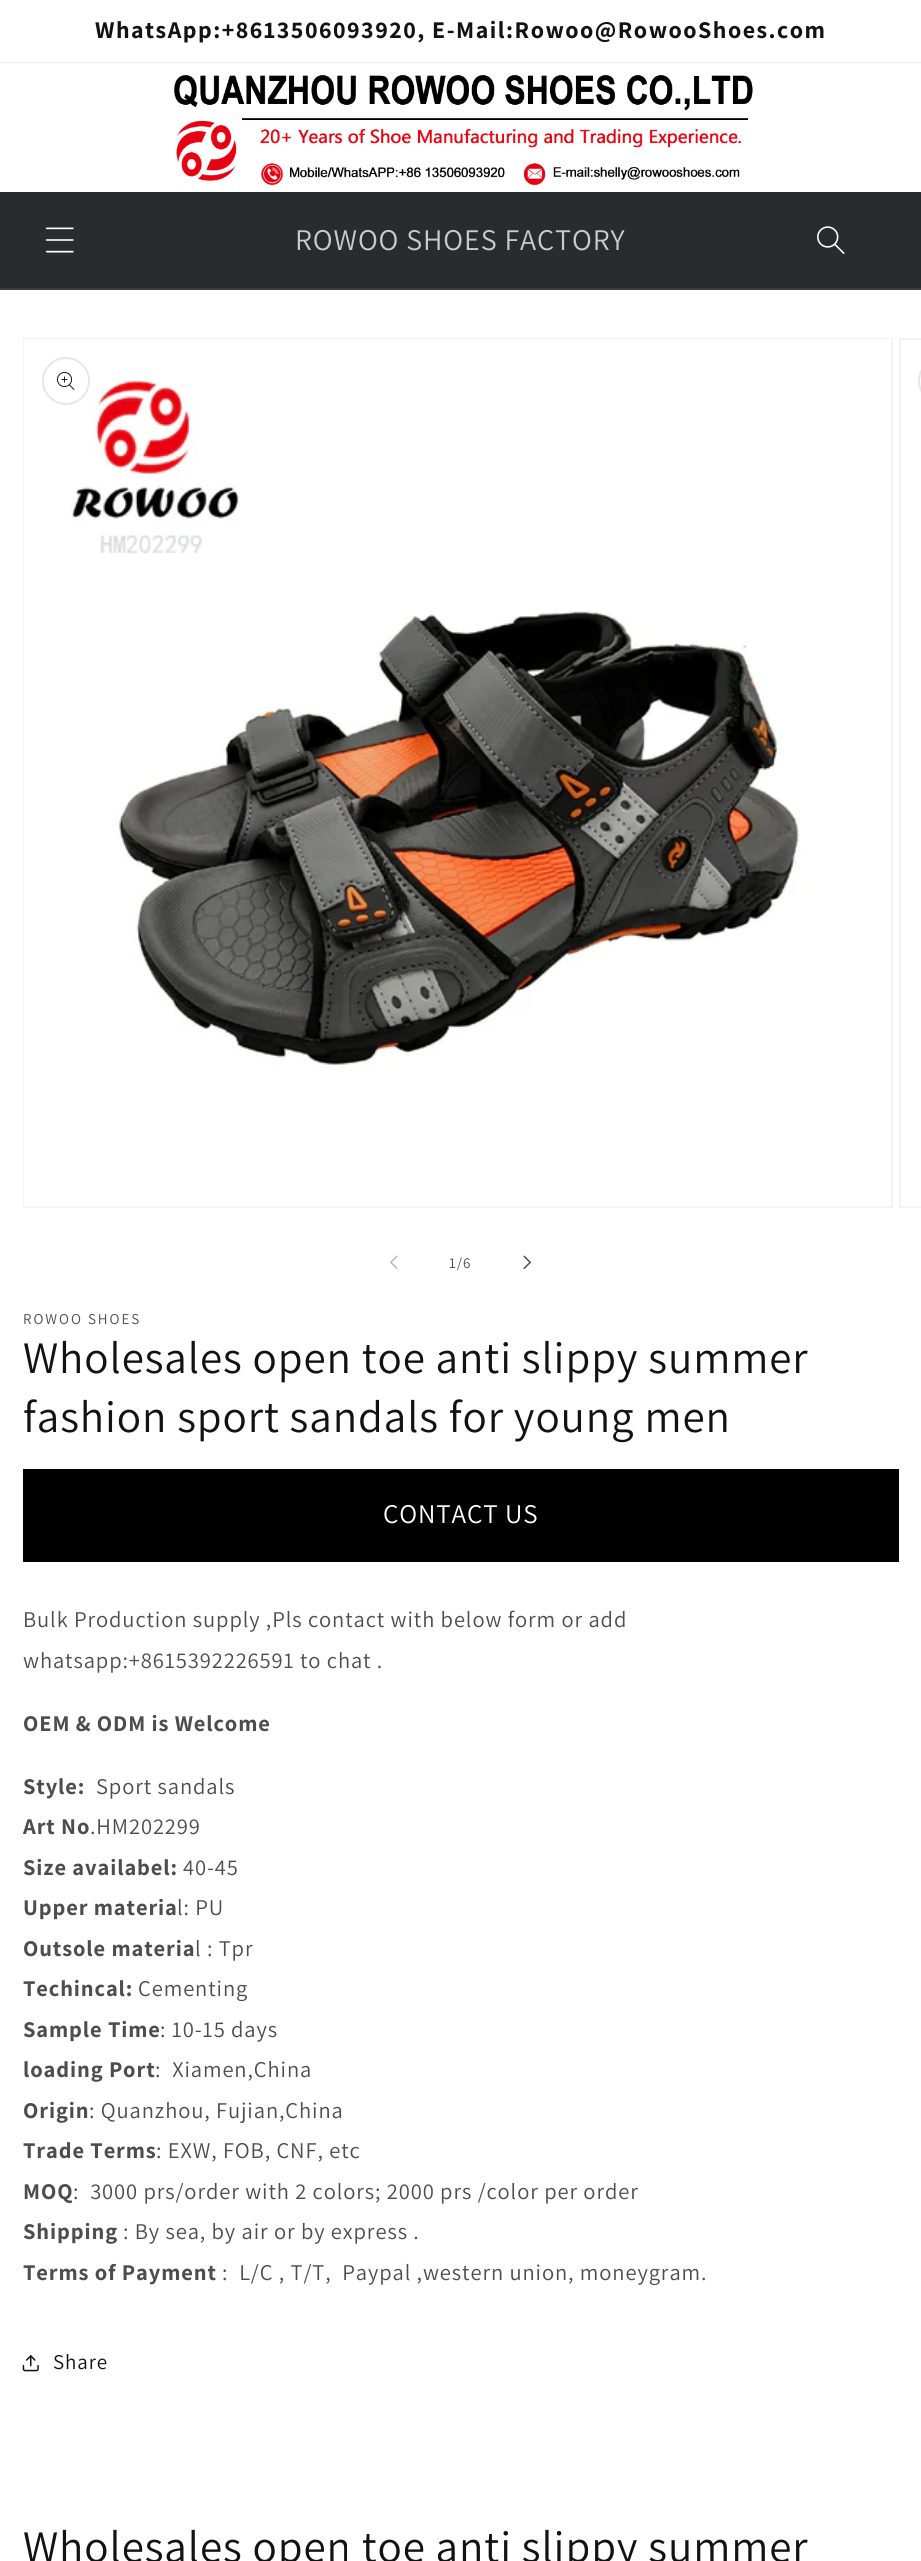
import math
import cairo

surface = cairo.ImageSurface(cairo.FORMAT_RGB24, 921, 2561)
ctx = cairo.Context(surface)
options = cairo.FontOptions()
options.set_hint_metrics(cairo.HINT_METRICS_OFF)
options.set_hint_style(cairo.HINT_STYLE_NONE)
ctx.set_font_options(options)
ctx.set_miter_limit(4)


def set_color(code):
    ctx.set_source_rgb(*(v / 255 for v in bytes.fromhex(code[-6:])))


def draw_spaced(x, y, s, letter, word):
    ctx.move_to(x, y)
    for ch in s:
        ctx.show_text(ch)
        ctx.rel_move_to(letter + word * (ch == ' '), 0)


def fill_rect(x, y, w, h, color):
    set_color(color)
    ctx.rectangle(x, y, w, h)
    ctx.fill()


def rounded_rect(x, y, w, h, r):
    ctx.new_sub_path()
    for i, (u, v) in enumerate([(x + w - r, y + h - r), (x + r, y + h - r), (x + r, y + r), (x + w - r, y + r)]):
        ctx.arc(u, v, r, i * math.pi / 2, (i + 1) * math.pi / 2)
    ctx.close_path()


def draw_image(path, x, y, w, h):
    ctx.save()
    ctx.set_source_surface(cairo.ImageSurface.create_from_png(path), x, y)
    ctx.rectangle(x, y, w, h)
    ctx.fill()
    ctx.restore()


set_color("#ffffff")
ctx.paint()
fill_rect(0, 62, 921, 1, "#ececec")
ctx.select_font_face("Assistant", cairo.FONT_SLANT_NORMAL, cairo.FONT_WEIGHT_BOLD)
ctx.set_font_size(24)
set_color("#121212")
draw_spaced(95, 38, "WhatsApp:+8613506093920, E-Mail:Rowoo@RowooShoes.com", 1.5, 0)
draw_image("assets/img1.png", 174, 74, 579, 112)
fill_rect(0, 192, 921, 96, "#2a2b2e")
fill_rect(0, 288, 921, 2, "#3b3c3f")
draw_image("assets/img2.png", 45, 227, 29, 26)
ctx.select_font_face("Assistant")
ctx.set_font_size(30)
set_color("#cacacb")
draw_spaced(295, 250, "ROWOO SHOES FACTORY", 0.9, 0)
draw_image("assets/img3.png", 817, 226, 28, 28)
ctx.rectangle(24, 339, 868, 868)
set_color("#f3f3f3")
ctx.stroke()
draw_image("assets/img4.png", 24, 339, 867, 867)
ctx.arc(66, 381, 23, 0, 2 * math.pi)
set_color("#e7e7e7")
ctx.stroke()
draw_image("assets/img5.png", 57, 372, 18, 18)
ctx.rectangle(900, 339, 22, 868)
set_color("#f3f3f3")
ctx.stroke()
rounded_rect(919, 358, 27, 46, 23)
set_color("#e7e7e7")
ctx.stroke()
draw_image("assets/img6.png", 390, 1255, 8, 14)
ctx.set_font_size(15)
set_color("#4d4d4d")
draw_spaced(449, 1268, "1/6", 1, 0)
draw_image("assets/img7.png", 523, 1255, 8, 14)
draw_spaced(23, 1324, "ROWOO SHOES", 2, 0)
ctx.set_font_size(45)
set_color("#121212")
draw_spaced(23, 1373, "Wholesales open toe anti slippy summer", 0.9, 0)
draw_spaced(23, 1432, "fashion sport sandals for young men", 0.9, 0)
fill_rect(23, 1469, 876, 93, "#000000")
ctx.set_font_size(27)
set_color("#ffffff")
draw_spaced(383, 1523, "CONTACT US", 0.9, 0)
ctx.set_font_size(22.5)
set_color("#4d4d4d")
draw_spaced(23, 1627, "Bulk Production supply ,Pls contact with below form or add", 0.9, 0)
draw_spaced(23, 1668, "whatsapp:+8615392226591 to chat .", 0.9, 0)
ctx.select_font_face("Assistant", cairo.FONT_SLANT_NORMAL, cairo.FONT_WEIGHT_BOLD)
draw_spaced(23, 1731, "OEM & ODM is Welcome", 0.9, 0)
draw_spaced(23, 1794, "Style:", 0.9, 0)
ctx.select_font_face("Assistant")
draw_spaced(96, 1794, "Sport sandals", 0.9, 0)
ctx.select_font_face("Assistant", cairo.FONT_SLANT_NORMAL, cairo.FONT_WEIGHT_BOLD)
draw_spaced(23, 1834, "Art No", 0.9, 0)
ctx.select_font_face("Assistant")
draw_spaced(90, 1834, ".HM202299", 0.9, 0)
ctx.select_font_face("Assistant", cairo.FONT_SLANT_NORMAL, cairo.FONT_WEIGHT_BOLD)
draw_spaced(23, 1875, "Size availabel:", 0.9, 0)
ctx.select_font_face("Assistant")
draw_spaced(183, 1875, "40-45", 0.9, 0)
ctx.select_font_face("Assistant", cairo.FONT_SLANT_NORMAL, cairo.FONT_WEIGHT_BOLD)
draw_spaced(23, 1915, "Upper materia", 0.9, 0)
ctx.select_font_face("Assistant")
draw_spaced(177, 1915, "l: PU", 0.9, 0)
ctx.select_font_face("Assistant", cairo.FONT_SLANT_NORMAL, cairo.FONT_WEIGHT_BOLD)
draw_spaced(23, 1956, "Outsole materia", 0.9, 0)
ctx.select_font_face("Assistant")
draw_spaced(195, 1956, "l : Tpr", 0.9, 0)
ctx.select_font_face("Assistant", cairo.FONT_SLANT_NORMAL, cairo.FONT_WEIGHT_BOLD)
draw_spaced(23, 1996, "Techincal:", 0.9, 0)
ctx.select_font_face("Assistant")
draw_spaced(138, 1996, "Cementing", 0.9, 0)
ctx.select_font_face("Assistant", cairo.FONT_SLANT_NORMAL, cairo.FONT_WEIGHT_BOLD)
draw_spaced(23, 2037, "Sample Time", 0.9, 0)
ctx.select_font_face("Assistant")
draw_spaced(160, 2037, ": 10-15 days", 0.9, 0)
ctx.select_font_face("Assistant", cairo.FONT_SLANT_NORMAL, cairo.FONT_WEIGHT_BOLD)
draw_spaced(23, 2077, "loading Port", 0.9, 0)
ctx.select_font_face("Assistant")
draw_spaced(155, 2077, ":  Xiamen,China", 0.9, 0)
ctx.select_font_face("Assistant", cairo.FONT_SLANT_NORMAL, cairo.FONT_WEIGHT_BOLD)
draw_spaced(23, 2118, "Origin", 0.9, 0)
ctx.select_font_face("Assistant")
draw_spaced(89, 2118, ": Quanzhou, Fujian,China", 0.9, 0)
ctx.select_font_face("Assistant", cairo.FONT_SLANT_NORMAL, cairo.FONT_WEIGHT_BOLD)
draw_spaced(23, 2158, "Trade Terms", 0.9, 0)
ctx.select_font_face("Assistant")
draw_spaced(156, 2158, ": EXW, FOB, CNF, etc", 0.9, 0)
ctx.select_font_face("Assistant", cairo.FONT_SLANT_NORMAL, cairo.FONT_WEIGHT_BOLD)
draw_spaced(23, 2199, "MOQ", 0.9, 0)
ctx.select_font_face("Assistant")
draw_spaced(73, 2199, ":  3000 prs/order with 2 colors; 2000 prs /color per order", 0.9, 0)
ctx.select_font_face("Assistant", cairo.FONT_SLANT_NORMAL, cairo.FONT_WEIGHT_BOLD)
draw_spaced(23, 2239, "Shipping", 0.9, 0)
ctx.select_font_face("Assistant")
draw_spaced(123, 2239, ": By sea, by air or by express .", 0.9, 0)
ctx.select_font_face("Assistant", cairo.FONT_SLANT_NORMAL, cairo.FONT_WEIGHT_BOLD)
draw_spaced(23, 2280, "Terms of Payment", 0.9, 0)
ctx.select_font_face("Assistant")
draw_spaced(222, 2280, ":  L/C , T/T,  Paypal ,western union, moneygram.", 0.9, 0)
draw_image("assets/img8.png", 22, 2355, 17, 17)
ctx.set_font_size(21)
set_color("#121212")
draw_spaced(53, 2369, "Share", 0.9, 0)
ctx.set_font_size(45)
draw_spaced(23, 2562, "Wholesales open toe anti slippy summer", 0.9, 0)
surface.write_to_png("output.png")
